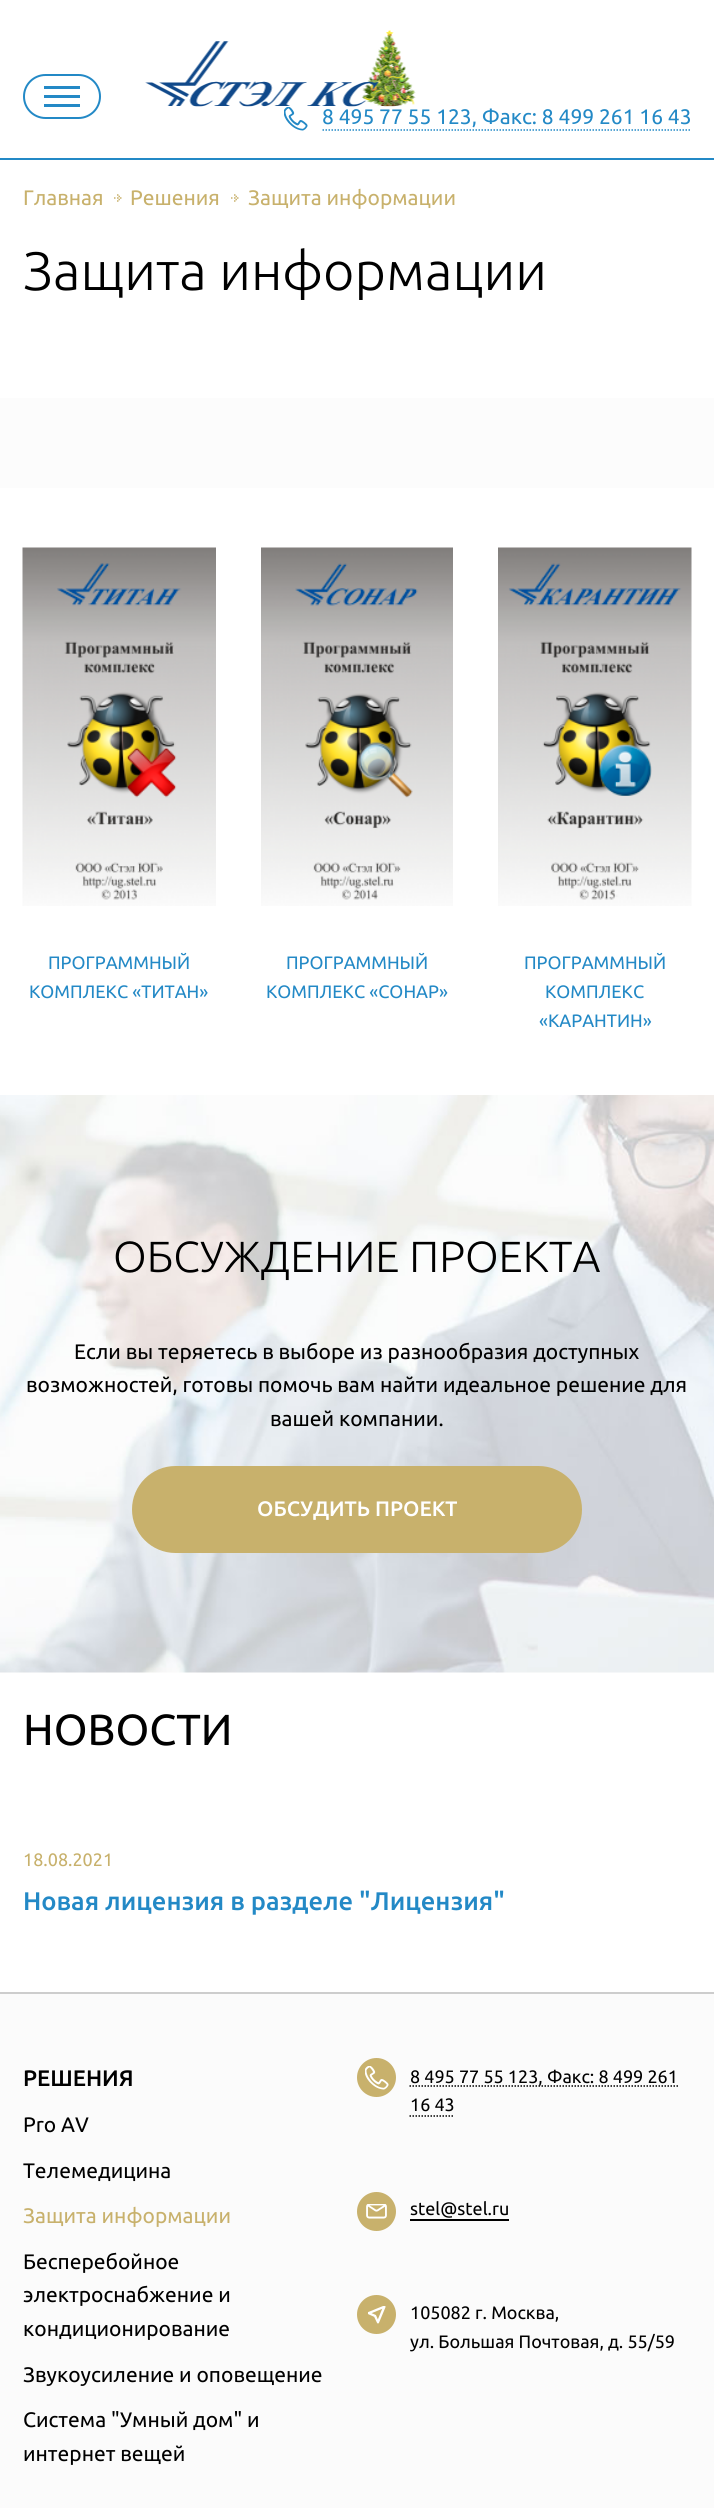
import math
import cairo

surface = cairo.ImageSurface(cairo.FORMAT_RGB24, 714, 2508)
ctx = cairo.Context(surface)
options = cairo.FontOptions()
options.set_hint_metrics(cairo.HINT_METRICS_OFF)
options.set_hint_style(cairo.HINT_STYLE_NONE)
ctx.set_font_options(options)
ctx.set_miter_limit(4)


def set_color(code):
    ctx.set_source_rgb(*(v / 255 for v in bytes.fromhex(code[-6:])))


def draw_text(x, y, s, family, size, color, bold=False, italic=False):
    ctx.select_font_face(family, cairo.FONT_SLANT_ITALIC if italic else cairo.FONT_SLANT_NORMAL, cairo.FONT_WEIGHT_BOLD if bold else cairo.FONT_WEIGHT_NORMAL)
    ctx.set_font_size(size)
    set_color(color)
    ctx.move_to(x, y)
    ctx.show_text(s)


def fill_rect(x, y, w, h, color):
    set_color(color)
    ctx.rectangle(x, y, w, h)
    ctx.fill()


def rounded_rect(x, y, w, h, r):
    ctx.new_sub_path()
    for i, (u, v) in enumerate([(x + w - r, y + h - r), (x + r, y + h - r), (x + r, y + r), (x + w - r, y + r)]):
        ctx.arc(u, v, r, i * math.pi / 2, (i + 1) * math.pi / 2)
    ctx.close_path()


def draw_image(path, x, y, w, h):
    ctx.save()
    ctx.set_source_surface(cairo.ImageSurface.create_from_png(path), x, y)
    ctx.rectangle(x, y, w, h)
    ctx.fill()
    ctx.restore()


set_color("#ffffff")
ctx.paint()
fill_rect(0, 158, 714, 2, "#2389c6")
rounded_rect(24, 75, 76, 43, 21.5)
ctx.stroke()
fill_rect(44, 86, 36, 3, "#2389c6")
fill_rect(44, 95, 36, 3, "#2389c6")
fill_rect(44, 104, 36, 3, "#2389c6")
draw_image("assets/img1.png", 145, 30, 271, 77)
draw_image("assets/img2.png", 284, 107, 24, 24)
ctx.new_path()
ctx.move_to(322.5, 130)
ctx.line_to(691.5, 130)
ctx.set_line_width(1.5)
ctx.set_dash([1.5, 1.5])
ctx.stroke()
draw_text(322, 124, "8 495 77 55 123, Факс: 8 499 261 16 43", "Ubuntu", 21, "#2389c6")
draw_text(23, 205, "Главная", "Ubuntu", 21, "#c8b16c")
draw_image("assets/img3.png", 114, 194, 8, 8)
draw_text(130, 205, "Решения", "Ubuntu", 21, "#c8b16c")
draw_image("assets/img3.png", 231, 194, 8, 8)
draw_text(248, 205, "Защита информации", "Ubuntu", 21, "#c8b16c")
draw_text(23, 290, "Защита информации", "Ubuntu Light", 54, "#000000")
fill_rect(0, 398, 714, 90, "#fcfcfc")
draw_image("assets/img4.png", 22, 547, 194, 359)
draw_text(48, 969, "ПРОГРАММНЫЙ", "Ubuntu", 18, "#2389c6")
draw_text(29, 998, "КОМПЛЕКС «ТИТАН»", "Ubuntu", 18, "#2389c6")
draw_image("assets/img5.png", 261, 547, 192, 359)
draw_text(286, 969, "ПРОГРАММНЫЙ", "Ubuntu", 18, "#2389c6")
draw_text(266, 998, "КОМПЛЕКС «СОНАР»", "Ubuntu", 18, "#2389c6")
draw_image("assets/img6.png", 498, 547, 194, 359)
draw_text(524, 969, "ПРОГРАММНЫЙ", "Ubuntu", 18, "#2389c6")
draw_text(545, 998, "КОМПЛЕКС", "Ubuntu", 18, "#2389c6")
draw_text(539, 1027, "«КАРАНТИН»", "Ubuntu", 18, "#2389c6")
draw_image("assets/img7.png", 0, 1095, 714, 578)
draw_text(113, 1272, "ОБСУЖДЕНИЕ ПРОЕКТА", "Ubuntu Light", 43.5, "#000000")
draw_text(74, 1359, "Если вы теряетесь в выборе из разнообразия доступных", "Ubuntu", 21, "#000000")
draw_text(26, 1392, "возможностей, готовы помочь вам найти идеальное решение для", "Ubuntu", 21, "#000000")
draw_text(270, 1426, "вашей компании.", "Ubuntu", 21, "#000000")
set_color("#c8b16c")
rounded_rect(132, 1466, 450, 87, 43.5)
ctx.fill()
draw_text(257, 1516, "ОБСУДИТЬ ПРОЕКТ", "Ubuntu Medium", 21, "#ffffff")
draw_text(23, 1745, "НОВОСТИ", "Ubuntu", 43.5, "#000000")
draw_text(23, 1866, "18.08.2021", "Ubuntu", 18, "#c8b16c")
draw_text(23, 1910, "Новая лицензия в разделе \"Лицензия\"", "Ubuntu Medium", 25.5, "#2389c6")
fill_rect(0, 1994, 714, 514, "#fbfbfb")
fill_rect(0, 1992, 714, 2, "#cdcdcd")
draw_text(23, 2086, "РЕШЕНИЯ", "Ubuntu Medium", 22.5, "#000000")
draw_text(23, 2132, "Pro AV", "Ubuntu", 21, "#000000")
draw_text(23, 2178, "Телемедицина", "Ubuntu", 21, "#000000")
draw_text(23, 2223, "Защита информации", "Ubuntu", 21, "#c8b16c")
draw_text(23, 2269, "Бесперебойное", "Ubuntu", 21, "#000000")
draw_text(23, 2302, "электроснабжение и", "Ubuntu", 21, "#000000")
draw_text(23, 2336, "кондиционирование", "Ubuntu", 21, "#000000")
draw_text(23, 2382, "Звукоусиление и оповещение", "Ubuntu", 21, "#000000")
draw_text(23, 2427, "Система \"Умный дом\" и", "Ubuntu", 21, "#000000")
draw_text(23, 2461, "интернет вещей", "Ubuntu", 21, "#000000")
set_color("#c8b16c")
ctx.new_path()
ctx.arc(376.5, 2077.5, 19.5, 0, 2 * math.pi)
ctx.fill()
draw_image("assets/img8.png", 365, 2066, 24, 24)
ctx.new_path()
ctx.move_to(409.5, 2086)
ctx.line_to(678, 2086)
set_color("#000000")
ctx.stroke()
draw_text(410, 2083, "8 495 77 55 123, Факс: 8 499 261", "Ubuntu", 18, "#000000")
draw_text(410, 2111, "16 43", "Ubuntu", 18, "#000000")
ctx.new_path()
ctx.move_to(409.5, 2116)
ctx.line_to(454.5, 2116)
ctx.stroke()
set_color("#c8b16c")
ctx.arc(376.5, 2211.5, 19.5, 0, 2 * math.pi)
ctx.fill()
draw_image("assets/img9.png", 366, 2204, 21, 15)
draw_text(410, 2215, "stel@stel.ru", "Ubuntu", 18, "#000000")
fill_rect(410, 2219, 99, 2, "#000000")
set_color("#c8b16c")
ctx.new_path()
ctx.arc(376.5, 2314.5, 19.5, 0, 2 * math.pi)
ctx.fill()
draw_image("assets/img10.png", 368, 2306, 18, 18)
draw_text(410, 2319, "105082 г. Москва,", "Ubuntu", 18, "#000000")
draw_text(410, 2348, "ул. Большая Почтовая, д. 55/59", "Ubuntu", 18, "#000000")
surface.write_to_png("output.png")
